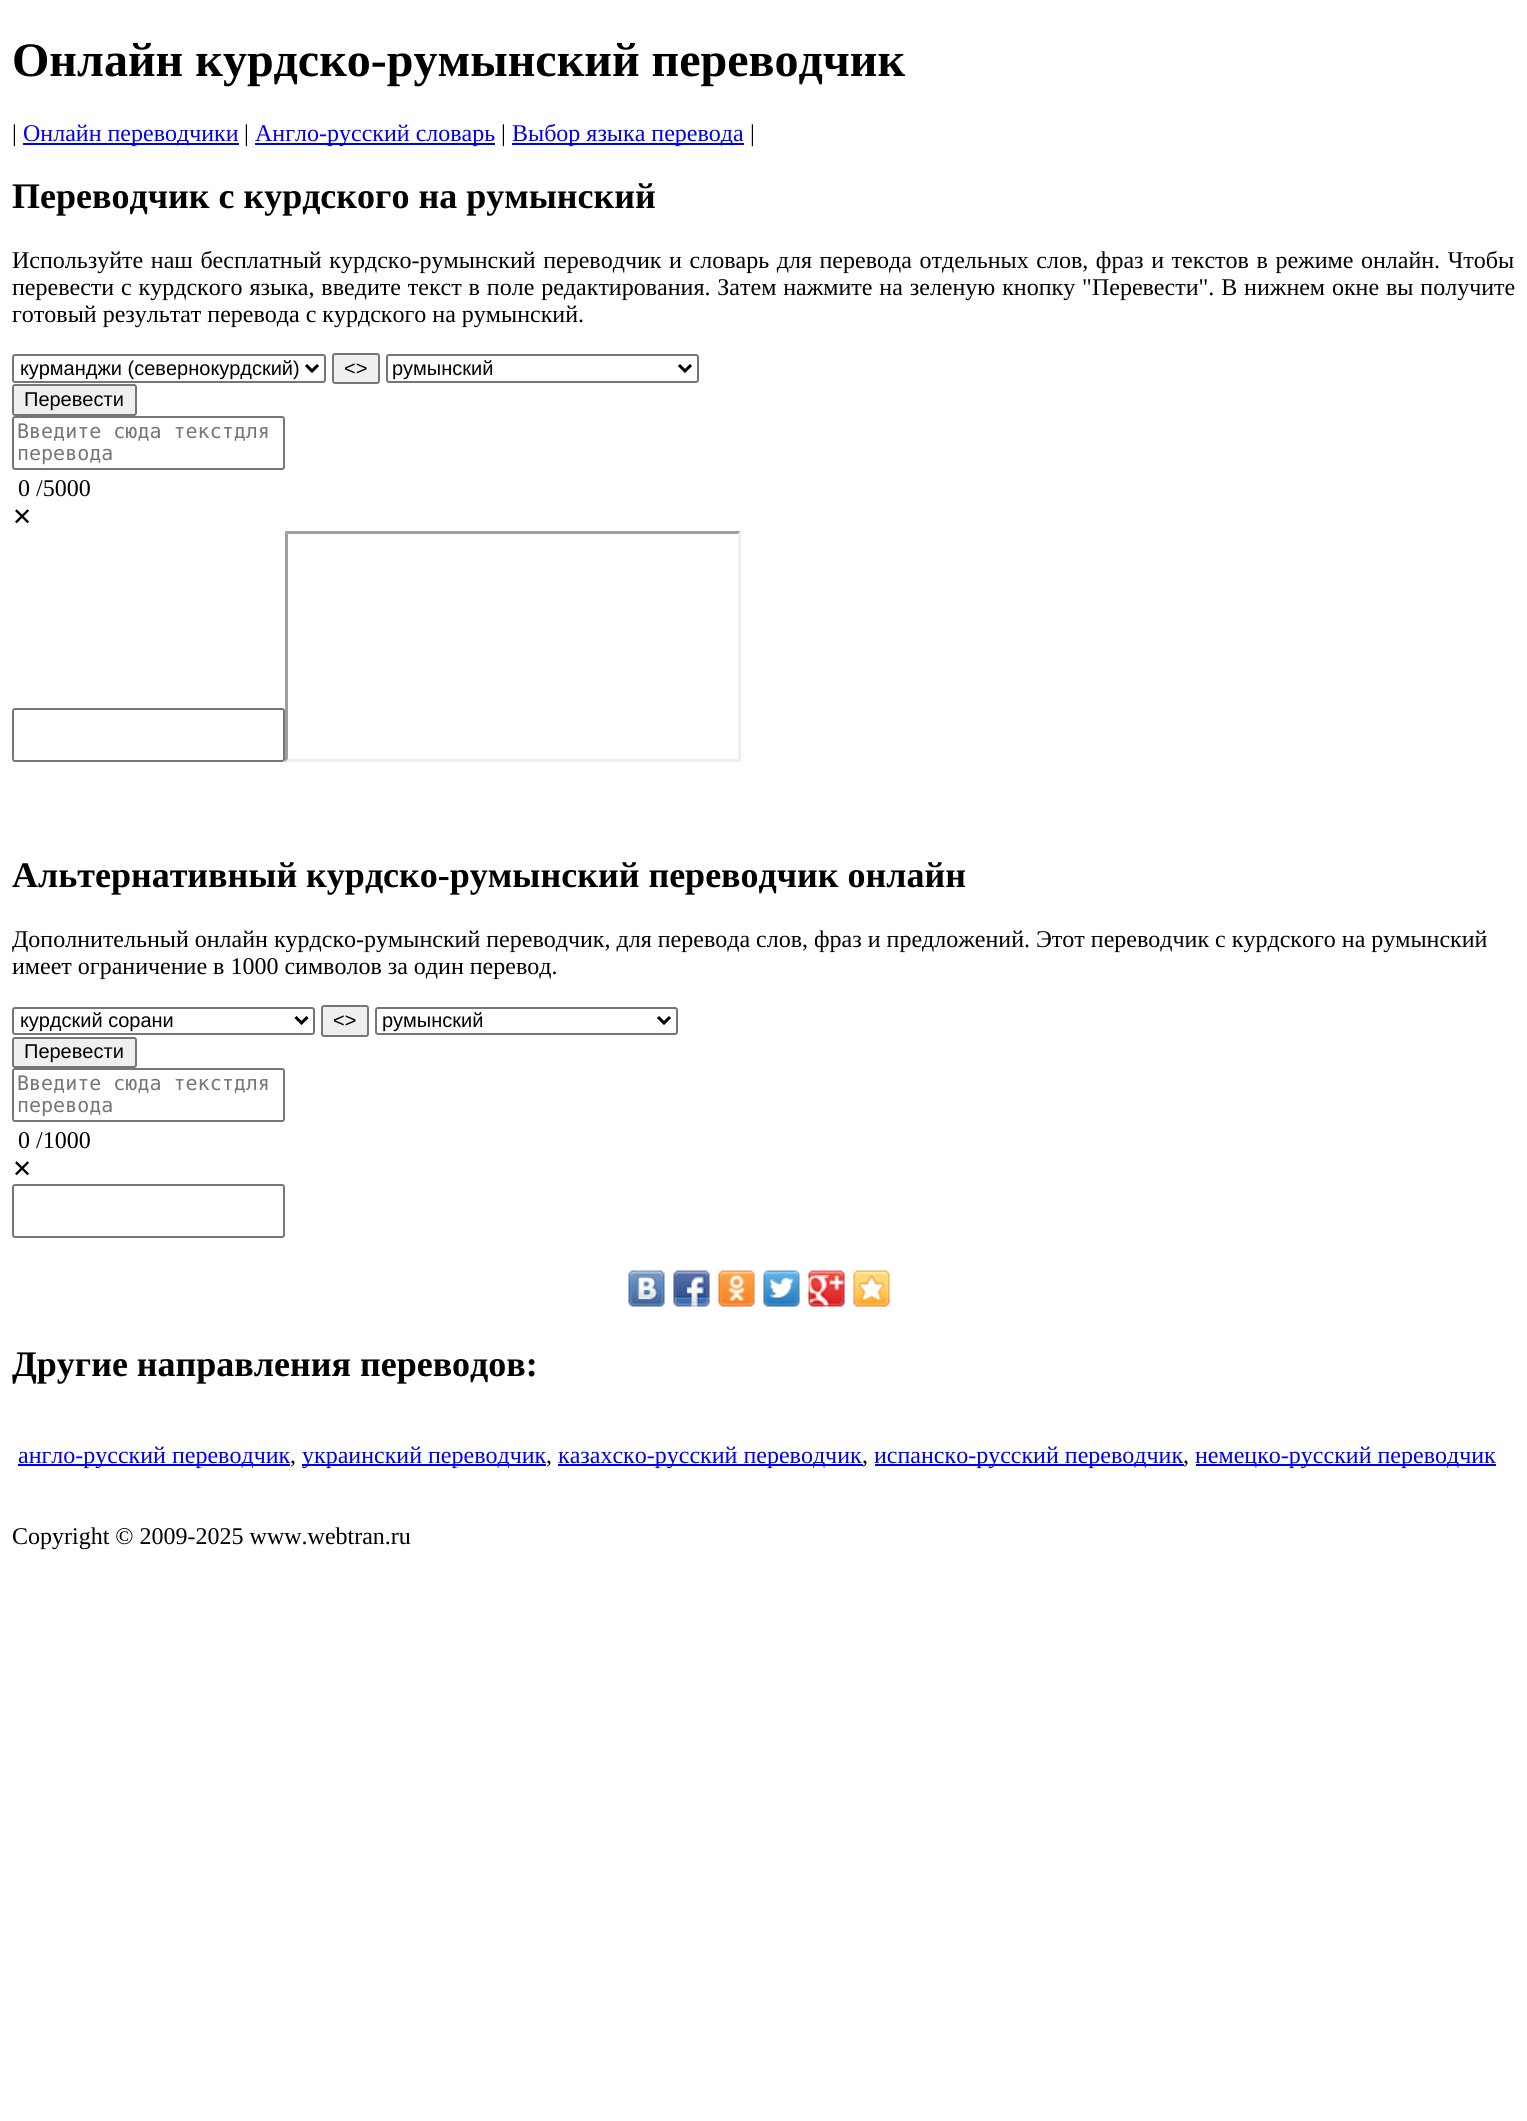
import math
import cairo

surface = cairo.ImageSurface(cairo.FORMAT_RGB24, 1527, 2121)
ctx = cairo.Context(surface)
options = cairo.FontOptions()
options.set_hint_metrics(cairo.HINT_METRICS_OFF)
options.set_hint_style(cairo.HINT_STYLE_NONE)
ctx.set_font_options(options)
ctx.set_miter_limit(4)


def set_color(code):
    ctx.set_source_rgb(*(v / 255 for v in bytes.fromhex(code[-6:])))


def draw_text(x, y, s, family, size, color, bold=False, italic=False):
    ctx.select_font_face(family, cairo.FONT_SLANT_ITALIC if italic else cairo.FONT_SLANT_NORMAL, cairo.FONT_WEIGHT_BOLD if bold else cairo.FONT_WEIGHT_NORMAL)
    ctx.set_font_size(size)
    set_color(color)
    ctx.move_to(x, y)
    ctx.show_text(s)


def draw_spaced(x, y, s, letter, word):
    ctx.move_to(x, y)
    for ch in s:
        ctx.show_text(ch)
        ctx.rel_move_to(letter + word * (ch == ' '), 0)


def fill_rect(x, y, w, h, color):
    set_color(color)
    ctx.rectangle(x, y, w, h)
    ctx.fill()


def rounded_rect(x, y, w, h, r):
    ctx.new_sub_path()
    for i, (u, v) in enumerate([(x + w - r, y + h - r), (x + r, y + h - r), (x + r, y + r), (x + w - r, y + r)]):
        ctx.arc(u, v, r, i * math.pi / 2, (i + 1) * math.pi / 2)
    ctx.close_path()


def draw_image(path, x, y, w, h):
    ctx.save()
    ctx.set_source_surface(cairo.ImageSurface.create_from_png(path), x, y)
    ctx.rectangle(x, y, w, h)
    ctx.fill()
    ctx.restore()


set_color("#ffffff")
ctx.paint()
draw_text(12, 76, "Онлайн курдско-румынский переводчик", "Liberation Serif", 48, "#000000", bold=True)
draw_text(12, 141, "|", "Liberation Serif", 24, "#000000")
fill_rect(23, 143, 216, 2, "#0000ee")
draw_text(23, 141, "Онлайн переводчики", "Liberation Serif", 24, "#0000ee")
draw_text(244, 141, "|", "Liberation Serif", 24, "#000000")
fill_rect(255, 143, 240, 2, "#0000ee")
draw_text(255, 141, "Англо-русский словарь", "Liberation Serif", 24, "#0000ee")
draw_text(501, 141, "|", "Liberation Serif", 24, "#000000")
fill_rect(512, 143, 232, 2, "#0000ee")
draw_text(512, 141, "Выбор языка перевода", "Liberation Serif", 24, "#0000ee")
draw_text(750, 141, "|", "Liberation Serif", 24, "#000000")
draw_text(12, 208, "Переводчик с курдского на румынский", "Liberation Serif", 36, "#000000", bold=True)
ctx.select_font_face("Liberation Serif")
ctx.set_font_size(24)
draw_spaced(12, 268, "Используйте наш бесплатный курдско-румынский переводчик и словарь для перевода отдельных слов, фраз и текстов в режиме онлайн. Чтобы", 0, 1.6)
draw_spaced(12, 295, "перевести с курдского языка, введите текст в поле редактирования. Затем нажмите на зеленую кнопку \"Перевести\". В нижнем окне вы получите", 0, 0.9)
draw_text(12, 322, "готовый результат перевода с курдского на румынский.", "Liberation Serif", 24, "#000000")
rounded_rect(13, 355, 312, 27, 2)
set_color("#767676")
ctx.stroke()
ctx.new_path()
ctx.move_to(306, 365)
ctx.line_to(312, 371)
ctx.line_to(318, 365)
set_color("#000000")
ctx.set_line_width(3)
ctx.stroke()
draw_text(20, 375, "курманджи (севернокурдский)", "Liberation Sans", 20, "#000000")
set_color("#efefef")
rounded_rect(333, 354, 46, 29, 2)
ctx.fill_preserve()
set_color("#767676")
ctx.set_line_width(2)
ctx.stroke()
draw_text(344, 375, "<>", "Liberation Sans", 20, "#000000")
rounded_rect(387, 355, 311, 27, 2)
set_color("#767676")
ctx.stroke()
ctx.new_path()
ctx.move_to(679, 365)
ctx.line_to(685, 371)
ctx.line_to(691, 365)
set_color("#000000")
ctx.set_line_width(3)
ctx.stroke()
draw_text(392, 375, "румынский", "Liberation Sans", 20, "#000000")
set_color("#efefef")
rounded_rect(13, 385, 123, 30, 2)
ctx.fill_preserve()
set_color("#767676")
ctx.set_line_width(2)
ctx.stroke()
draw_text(24, 406, "Перевести", "Liberation Sans", 20, "#000000")
rounded_rect(13, 417, 271, 52, 2)
set_color("#767676")
ctx.stroke()
draw_text(17, 438, "Введите сюда текстдля", "DejaVu Sans Mono", 20, "#757575")
draw_text(17, 460, "перевода", "DejaVu Sans Mono", 20, "#757575")
draw_text(18, 496, "0 /5000", "Liberation Serif", 24, "#000000")
draw_text(12, 525, "✕", "DejaVu Sans", 24, "#000000")
set_color("#9f9f9f")
ctx.new_path()
ctx.move_to(285, 531)
ctx.line_to(741, 531)
ctx.line_to(738, 534)
ctx.line_to(288, 534)
ctx.close_path()
ctx.fill()
rounded_rect(13, 709, 271, 52, 2)
set_color("#767676")
ctx.stroke()
set_color("#eeeeee")
ctx.new_path()
ctx.move_to(741, 531)
ctx.line_to(741, 762)
ctx.line_to(738, 759)
ctx.line_to(738, 534)
ctx.close_path()
ctx.fill()
ctx.new_path()
ctx.move_to(741, 762)
ctx.line_to(285, 762)
ctx.line_to(288, 759)
ctx.line_to(738, 759)
ctx.close_path()
ctx.fill()
set_color("#9f9f9f")
ctx.new_path()
ctx.move_to(285, 762)
ctx.line_to(285, 531)
ctx.line_to(288, 534)
ctx.line_to(288, 759)
ctx.close_path()
ctx.fill()
draw_text(12, 887, "Альтернативный курдско-румынский переводчик онлайн", "Liberation Serif", 36, "#000000", bold=True)
draw_text(12, 947, "Дополнительный онлайн курдско-румынский переводчик, для перевода слов, фраз и предложений. Этот переводчик с курдского на румынский", "Liberation Serif", 24, "#000000")
draw_text(12, 974, "имеет ограничение в 1000 символов за один перевод.", "Liberation Serif", 24, "#000000")
rounded_rect(13, 1008, 301, 26, 2)
set_color("#767676")
ctx.stroke()
ctx.new_path()
ctx.move_to(295.5, 1017)
ctx.line_to(301.5, 1023)
ctx.line_to(307.5, 1017)
set_color("#000000")
ctx.set_line_width(3)
ctx.stroke()
draw_text(20, 1027, "курдский сорани", "Liberation Sans", 20, "#000000")
set_color("#efefef")
rounded_rect(322, 1006, 46, 30, 2)
ctx.fill_preserve()
set_color("#767676")
ctx.set_line_width(2)
ctx.stroke()
draw_text(333, 1027, "<>", "Liberation Sans", 20, "#000000")
rounded_rect(376, 1008, 301, 26, 2)
set_color("#767676")
ctx.stroke()
ctx.new_path()
ctx.move_to(658, 1017)
ctx.line_to(664, 1023)
ctx.line_to(670, 1017)
set_color("#000000")
ctx.set_line_width(3)
ctx.stroke()
draw_text(382, 1027, "румынский", "Liberation Sans", 20, "#000000")
set_color("#efefef")
rounded_rect(13, 1038, 123, 29, 2)
ctx.fill_preserve()
set_color("#767676")
ctx.set_line_width(2)
ctx.stroke()
draw_text(24, 1058, "Перевести", "Liberation Sans", 20, "#000000")
rounded_rect(13, 1069, 271, 52, 2)
set_color("#767676")
ctx.stroke()
draw_text(17, 1090, "Введите сюда текстдля", "DejaVu Sans Mono", 20, "#757575")
draw_text(17, 1112, "перевода", "DejaVu Sans Mono", 20, "#757575")
draw_text(18, 1148, "0 /1000", "Liberation Serif", 24, "#000000")
draw_text(12, 1177, "✕", "DejaVu Sans", 24, "#000000")
rounded_rect(13, 1185, 271, 52, 2)
set_color("#767676")
ctx.stroke()
draw_image("assets/img1.png", 628, 1270, 37, 37)
draw_image("assets/img2.png", 673, 1270, 37, 37)
draw_image("assets/img3.png", 718, 1270, 37, 37)
draw_image("assets/img4.png", 763, 1270, 37, 37)
draw_image("assets/img5.png", 808, 1270, 37, 37)
draw_image("assets/img6.png", 853, 1270, 37, 37)
draw_text(12, 1376, "Другие направления переводов:", "Liberation Serif", 36, "#000000", bold=True)
fill_rect(18, 1464, 272, 2, "#0000ee")
draw_text(18, 1463, "англо-русский переводчик", "Liberation Serif", 24, "#0000ee")
draw_text(290, 1463, ",", "Liberation Serif", 24, "#000000")
fill_rect(302, 1464, 244, 2, "#0000ee")
draw_text(302, 1463, "украинский переводчик", "Liberation Serif", 24, "#0000ee")
draw_text(546, 1463, ",", "Liberation Serif", 24, "#000000")
fill_rect(558, 1464, 305, 2, "#0000ee")
draw_text(558, 1463, "казахско-русский переводчик", "Liberation Serif", 24, "#0000ee")
draw_text(862, 1463, ",", "Liberation Serif", 24, "#000000")
fill_rect(875, 1464, 309, 2, "#0000ee")
draw_text(874, 1463, "испанско-русский переводчик", "Liberation Serif", 24, "#0000ee")
draw_text(1183, 1463, ",", "Liberation Serif", 24, "#000000")
fill_rect(1196, 1464, 300, 2, "#0000ee")
draw_text(1195, 1463, "немецко-русский переводчик", "Liberation Serif", 24, "#0000ee")
draw_text(12, 1544, "Copyright © 2009-2025 www.webtran.ru", "Liberation Serif", 24, "#000000")
surface.write_to_png("output.png")
